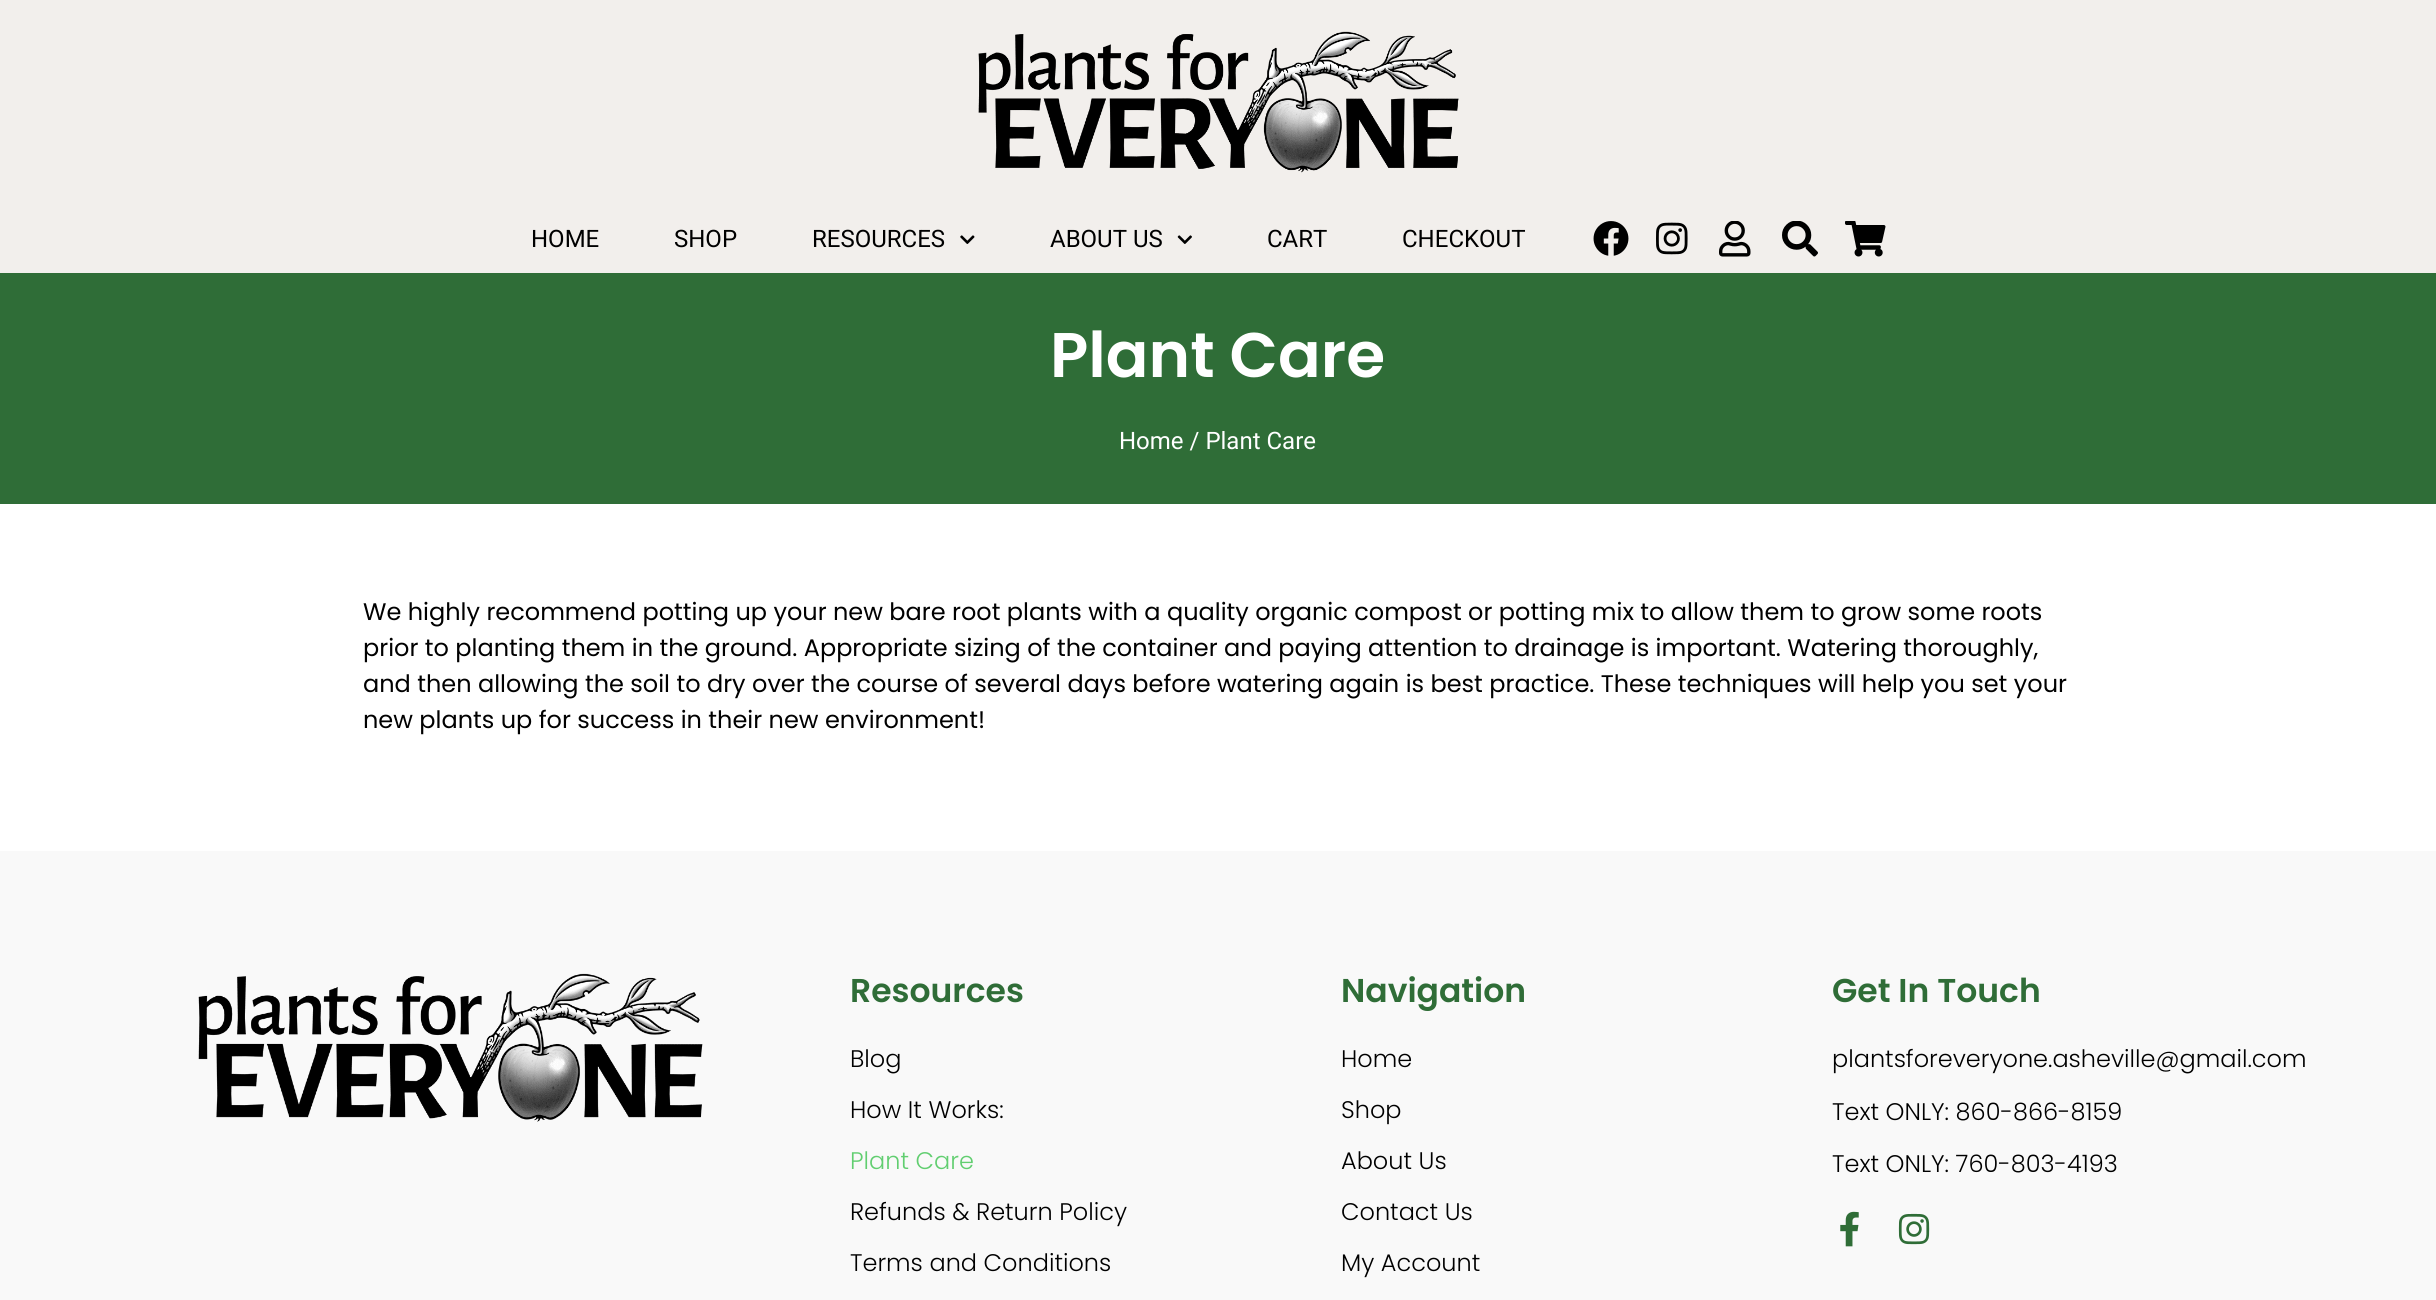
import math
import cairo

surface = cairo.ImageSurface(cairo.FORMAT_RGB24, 2436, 1300)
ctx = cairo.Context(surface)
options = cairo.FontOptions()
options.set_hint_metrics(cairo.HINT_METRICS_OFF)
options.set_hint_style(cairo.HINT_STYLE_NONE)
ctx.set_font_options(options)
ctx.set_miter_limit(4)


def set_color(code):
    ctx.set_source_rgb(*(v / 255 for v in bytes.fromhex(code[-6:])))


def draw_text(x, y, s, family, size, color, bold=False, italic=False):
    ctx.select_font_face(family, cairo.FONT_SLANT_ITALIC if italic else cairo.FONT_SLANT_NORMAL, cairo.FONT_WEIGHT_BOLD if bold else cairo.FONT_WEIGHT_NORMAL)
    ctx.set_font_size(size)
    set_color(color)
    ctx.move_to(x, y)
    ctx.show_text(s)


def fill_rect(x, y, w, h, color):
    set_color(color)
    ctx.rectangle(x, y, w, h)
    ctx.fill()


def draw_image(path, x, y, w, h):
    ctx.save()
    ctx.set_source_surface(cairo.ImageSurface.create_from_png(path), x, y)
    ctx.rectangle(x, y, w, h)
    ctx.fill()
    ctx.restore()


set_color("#ffffff")
ctx.paint()
fill_rect(0, 0, 2436, 273, "#f2efec")
draw_image("assets/img1.png", 978, 31, 481, 142)
draw_text(531, 247, "HOME", "Roboto", 24, "#000000")
draw_text(674, 247, "SHOP", "Roboto", 24, "#000000")
draw_text(812, 247, "RESOURCES", "Roboto", 24, "#000000")
draw_image("assets/img2.png", 960, 235, 15, 9)
draw_text(1050, 247, "ABOUT US", "Roboto", 24, "#000000")
draw_image("assets/img3.png", 1177, 235, 15, 9)
draw_text(1267, 247, "CART", "Roboto", 24, "#000000")
draw_text(1402, 247, "CHECKOUT", "Roboto", 24, "#000000")
draw_image("assets/img4.png", 1593, 221, 36, 35)
draw_image("assets/img5.png", 1656, 222, 32, 33)
draw_image("assets/img6.png", 1719, 221, 32, 36)
draw_image("assets/img7.png", 1782, 221, 36, 36)
draw_image("assets/img8.png", 1845, 221, 41, 36)
fill_rect(0, 273, 2436, 231, "#2f6d37")
draw_text(1050, 377, "Plant Care", "Poppins SemiBold", 63, "#ffffff")
draw_text(1119, 449, "Home / Plant Care", "Roboto", 24, "#ffffff")
draw_text(363, 620, "We highly recommend potting up your new bare root plants with a quality organic compost or potting mix to allow them to grow some roots", "Poppins", 24, "#000000")
draw_text(363, 656, "prior to planting them in the ground. Appropriate sizing of the container and paying attention to drainage is important. Watering thoroughly,", "Poppins", 24, "#000000")
draw_text(363, 692, "and then allowing the soil to dry over the course of several days before watering again is best practice. These techniques will help you set your", "Poppins", 24, "#000000")
draw_text(363, 728, "new plants up for success in their new environment!", "Poppins", 24, "#000000")
fill_rect(0, 851, 2436, 449, "#f9f9f9")
draw_image("assets/img9.png", 198, 973, 505, 149)
draw_text(850, 1002, "Resources", "Poppins SemiBold", 33, "#2f6d37")
draw_text(850, 1067, "Blog", "Poppins Light", 24, "#000000")
draw_text(850, 1118, "How It Works:", "Poppins Light", 24, "#000000")
draw_text(850, 1169, "Plant Care", "Poppins Light", 24, "#61ce70")
draw_text(850, 1220, "Refunds & Return Policy", "Poppins Light", 24, "#000000")
draw_text(850, 1271, "Terms and Conditions", "Poppins Light", 24, "#000000")
draw_text(1341, 1002, "Navigation", "Poppins SemiBold", 33, "#2f6d37")
draw_text(1341, 1067, "Home", "Poppins Light", 24, "#000000")
draw_text(1341, 1118, "Shop", "Poppins Light", 24, "#000000")
draw_text(1341, 1169, "About Us", "Poppins Light", 24, "#000000")
draw_text(1341, 1220, "Contact Us", "Poppins Light", 24, "#000000")
draw_text(1341, 1271, "My Account", "Poppins Light", 24, "#000000")
draw_text(1832, 1002, "Get In Touch", "Poppins SemiBold", 33, "#2f6d37")
draw_text(1832, 1067, "plantsforeveryone.asheville@gmail.com", "Poppins Light", 24, "#000000")
draw_text(1832, 1120, "Text ONLY: 860-866-8159", "Poppins Light", 24, "#000000")
draw_text(1832, 1172, "Text ONLY: 760-803-4193", "Poppins Light", 24, "#000000")
draw_image("assets/img10.png", 1840, 1211, 19, 36)
draw_image("assets/img11.png", 1898, 1213, 32, 32)
surface.write_to_png("output.png")
